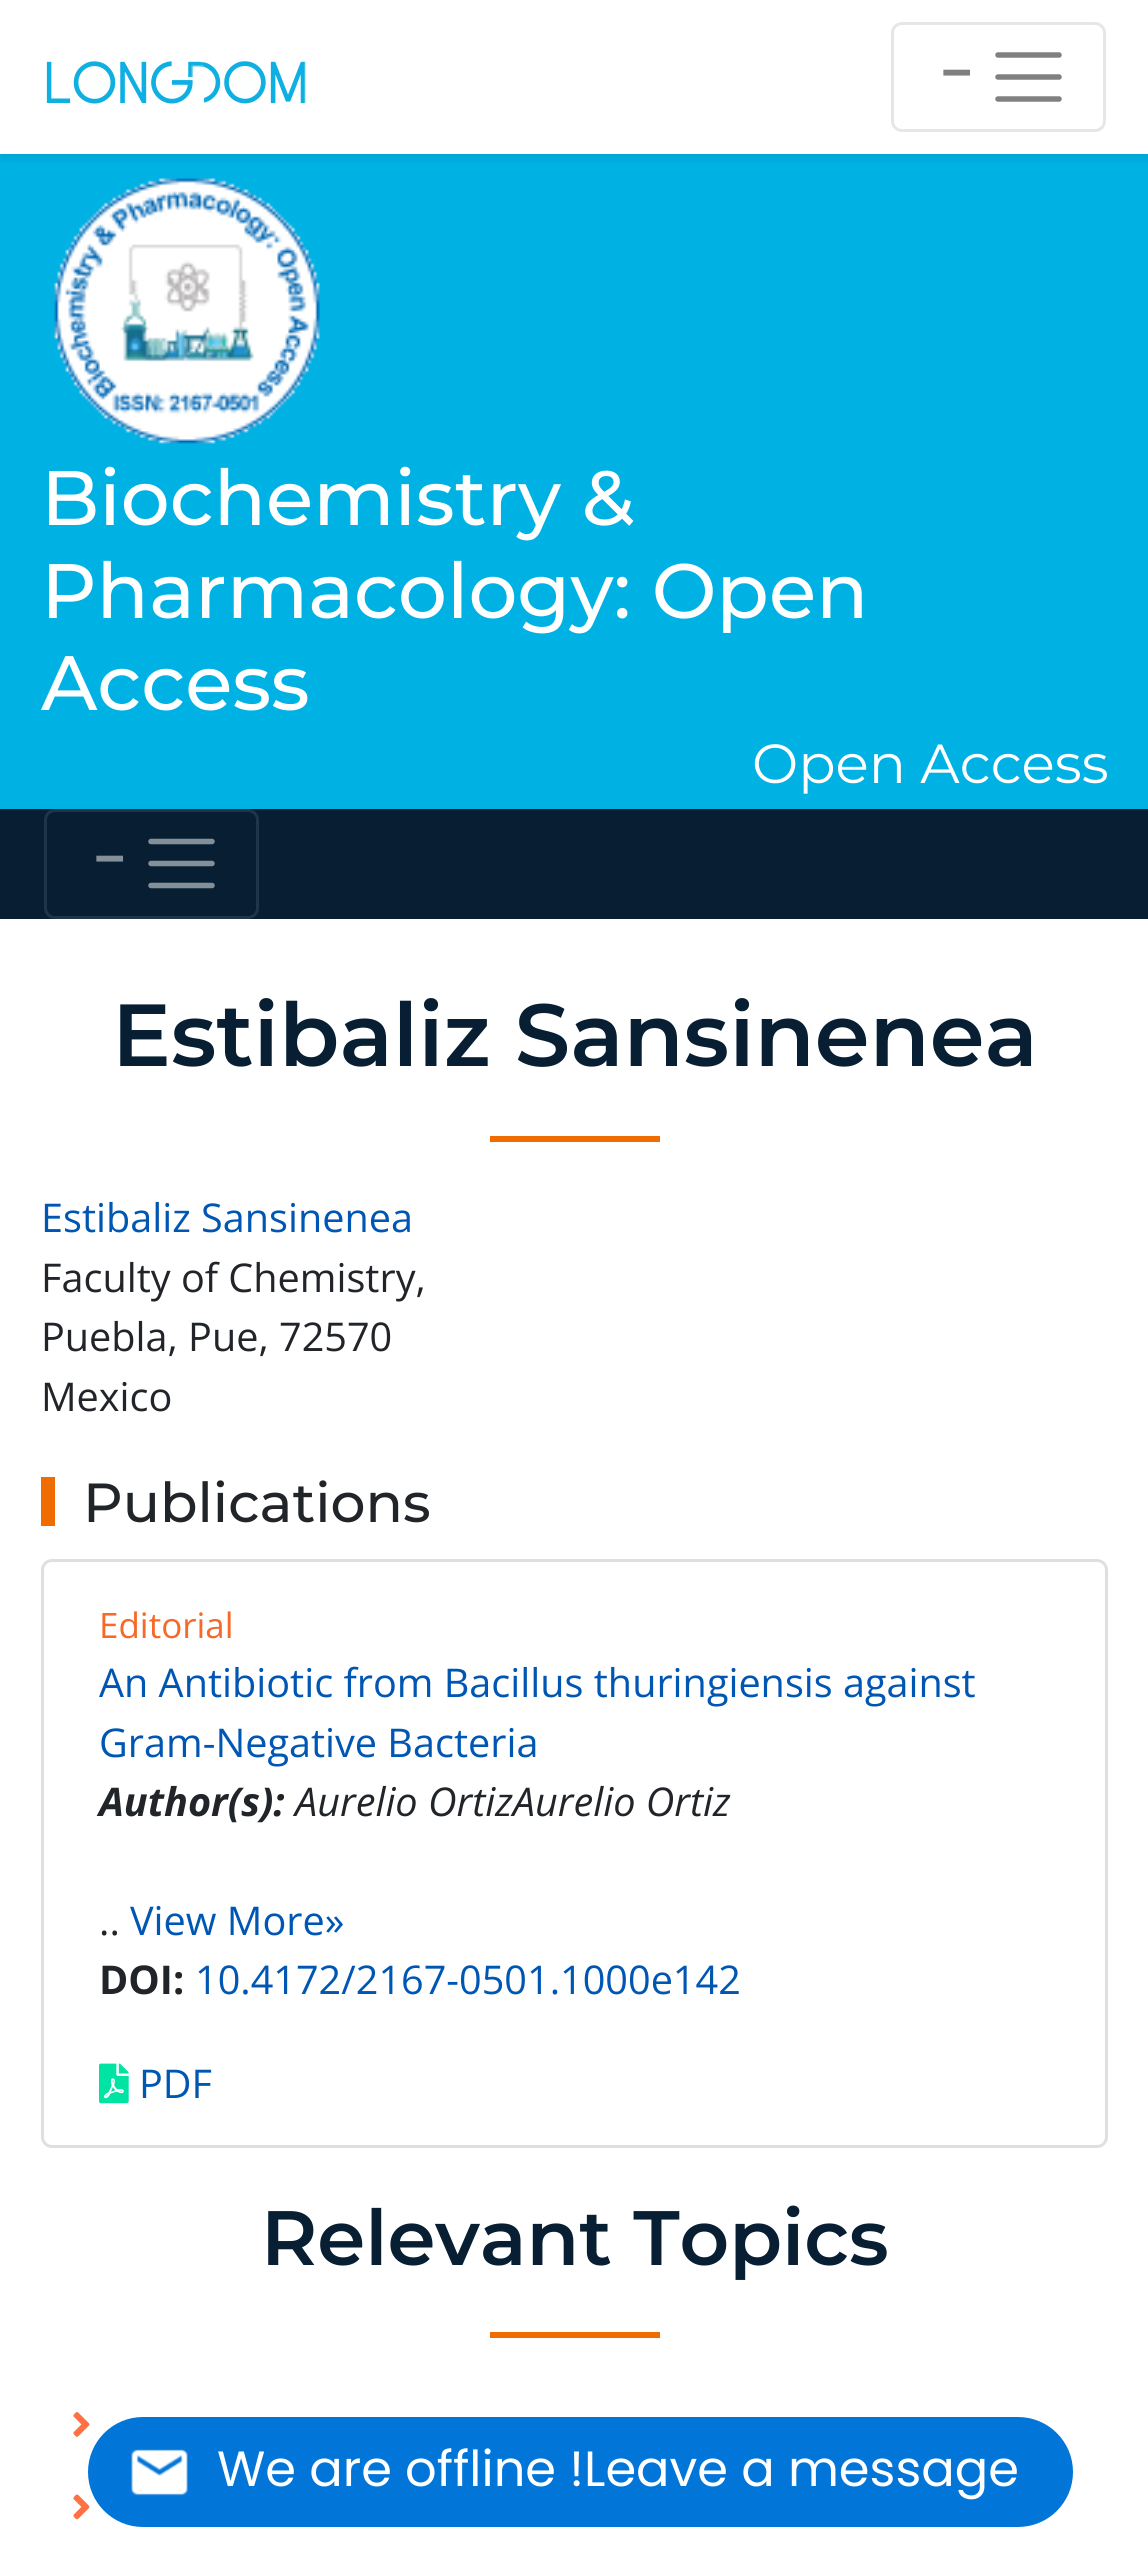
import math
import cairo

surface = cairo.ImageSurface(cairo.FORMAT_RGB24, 1148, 2559)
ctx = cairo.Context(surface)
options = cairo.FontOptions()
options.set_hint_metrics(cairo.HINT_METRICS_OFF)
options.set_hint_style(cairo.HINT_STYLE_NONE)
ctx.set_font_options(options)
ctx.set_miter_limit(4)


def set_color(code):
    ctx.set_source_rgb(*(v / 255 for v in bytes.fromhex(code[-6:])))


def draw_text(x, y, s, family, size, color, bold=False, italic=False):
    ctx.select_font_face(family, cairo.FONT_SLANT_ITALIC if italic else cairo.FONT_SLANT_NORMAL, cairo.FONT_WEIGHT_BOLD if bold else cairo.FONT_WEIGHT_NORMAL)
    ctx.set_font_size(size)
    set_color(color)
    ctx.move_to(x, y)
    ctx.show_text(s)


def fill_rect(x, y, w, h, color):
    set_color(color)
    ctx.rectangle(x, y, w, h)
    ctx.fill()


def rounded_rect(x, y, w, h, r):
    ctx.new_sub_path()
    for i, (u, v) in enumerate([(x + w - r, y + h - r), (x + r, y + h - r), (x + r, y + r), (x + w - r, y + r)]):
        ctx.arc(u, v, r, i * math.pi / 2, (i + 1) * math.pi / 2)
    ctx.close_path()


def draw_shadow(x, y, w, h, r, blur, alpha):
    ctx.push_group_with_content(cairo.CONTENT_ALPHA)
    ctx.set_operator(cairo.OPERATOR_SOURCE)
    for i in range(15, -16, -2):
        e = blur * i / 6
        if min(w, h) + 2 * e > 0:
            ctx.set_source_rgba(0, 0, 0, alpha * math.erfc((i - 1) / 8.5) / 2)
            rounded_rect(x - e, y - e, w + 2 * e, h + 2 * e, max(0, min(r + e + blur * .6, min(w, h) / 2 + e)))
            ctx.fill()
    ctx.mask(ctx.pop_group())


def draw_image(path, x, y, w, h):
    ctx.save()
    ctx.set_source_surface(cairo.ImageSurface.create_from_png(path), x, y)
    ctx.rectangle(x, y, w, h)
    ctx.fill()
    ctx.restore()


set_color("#ffffff")
ctx.paint()
fill_rect(0, 154, 1148, 655, "#00b1e4")
ctx.save()
ctx.rectangle(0, 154, 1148, 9)
ctx.clip()
set_color("#000000")
draw_shadow(0, 6, 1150, 154, 0, 5.5, 0.07)
ctx.restore()
draw_image("assets/img1.png", 46, 61, 260, 43)
rounded_rect(892.5, 23.5, 212, 107, 9.5)
set_color("#e6e6e6")
ctx.set_line_width(3)
ctx.stroke()
draw_text(941, 92, "−", "Open Sans", 55, "#808080", bold=True)
ctx.new_path()
ctx.move_to(998, 55)
ctx.line_to(1059, 55)
ctx.move_to(998, 77)
ctx.line_to(1059, 77)
ctx.move_to(998, 99)
ctx.line_to(1059, 99)
ctx.set_line_width(5.5)
ctx.set_line_cap(cairo.LINE_CAP_ROUND)
ctx.stroke()
draw_image("assets/img2.png", 54, 178, 266, 266)
draw_text(41, 525, "Biochemistry &", "Montserrat Medium", 77, "#ffffff")
draw_text(41, 618, "Pharmacology: Open", "Montserrat Medium", 77, "#ffffff")
draw_text(41, 710, "Access", "Montserrat Medium", 77, "#ffffff")
draw_text(752, 783, "Open Access", "Montserrat", 55, "#ffffff")
fill_rect(0, 809, 1148, 110, "#071e33")
rounded_rect(45.5, 810.5, 212, 107, 9.5)
set_color("#203547")
ctx.set_line_width(3)
ctx.set_line_cap(cairo.LINE_CAP_BUTT)
ctx.stroke()
draw_text(94, 878, "−", "Open Sans", 55, "#838f99", bold=True)
ctx.new_path()
ctx.move_to(151, 841.5)
ctx.line_to(212, 841.5)
ctx.move_to(151, 863.5)
ctx.line_to(212, 863.5)
ctx.move_to(151, 885.5)
ctx.line_to(212, 885.5)
ctx.set_line_width(5.5)
ctx.set_line_cap(cairo.LINE_CAP_ROUND)
ctx.stroke()
draw_text(112, 1066, "Estibaliz Sansinenea", "Montserrat SemiBold", 88, "#071e33")
fill_rect(490, 1136, 170, 6, "#ef6c00")
draw_text(41, 1232, "Estibaliz Sansinenea", "Open Sans", 39.6, "#0056b3")
draw_text(41, 1292, "Faculty of Chemistry,", "Open Sans", 39.6, "#212529")
draw_text(41, 1351, "Puebla, Pue, 72570", "Open Sans", 39.6, "#212529")
draw_text(41, 1411, "Mexico", "Open Sans", 39.6, "#212529")
fill_rect(41, 1477, 14, 49, "#ef6c00")
draw_text(83, 1522, "Publications", "Montserrat Medium", 55, "#212529")
rounded_rect(42.5, 1560.5, 1064, 586, 9.5)
set_color("#dfdfdf")
ctx.set_line_width(3)
ctx.set_line_cap(cairo.LINE_CAP_BUTT)
ctx.stroke()
draw_text(99, 1638, "Editorial", "Open Sans", 35, "#f66a29")
draw_text(99, 1697, "An Antibiotic from Bacillus thuringiensis against", "Open Sans", 39.6, "#0056b3")
draw_text(99, 1757, "Gram-Negative Bacteria", "Open Sans", 39.6, "#0056b3")
draw_text(99, 1816, "Author(s):", "Open Sans", 39.6, "#212529", bold=True, italic=True)
draw_text(295, 1816, "Aurelio OrtizAurelio Ortiz", "Open Sans", 39.6, "#212529", italic=True)
draw_text(99, 1935, "..", "Open Sans", 39.6, "#212529")
draw_text(130, 1935, "View More»", "Open Sans", 39.6, "#0056b3")
draw_text(99, 1994, "DOI:", "Open Sans", 39.6, "#212529", bold=True)
draw_text(195, 1994, "10.4172/2167-0501.1000e142", "Open Sans", 39.6, "#0056b3")
draw_image("assets/img3.png", 99, 2063, 30, 41)
draw_text(139, 2098, "PDF", "Open Sans", 39.6, "#0056b3")
draw_text(261, 2265, "Relevant Topics", "Montserrat SemiBold", 77, "#071e33")
fill_rect(490, 2332, 170, 6, "#ef6c00")
draw_image("assets/img4.png", 73, 2412, 17, 25)
draw_image("assets/img5.png", 73, 2494, 17, 26)
set_color("#0275d8")
rounded_rect(88, 2417, 985, 110, 55)
ctx.fill()
draw_image("assets/img6.png", 131, 2449, 57, 47)
draw_text(217, 2486, "We are offline !Leave a message", "Poppins", 49.5, "#ffffff")
surface.write_to_png("output.png")
